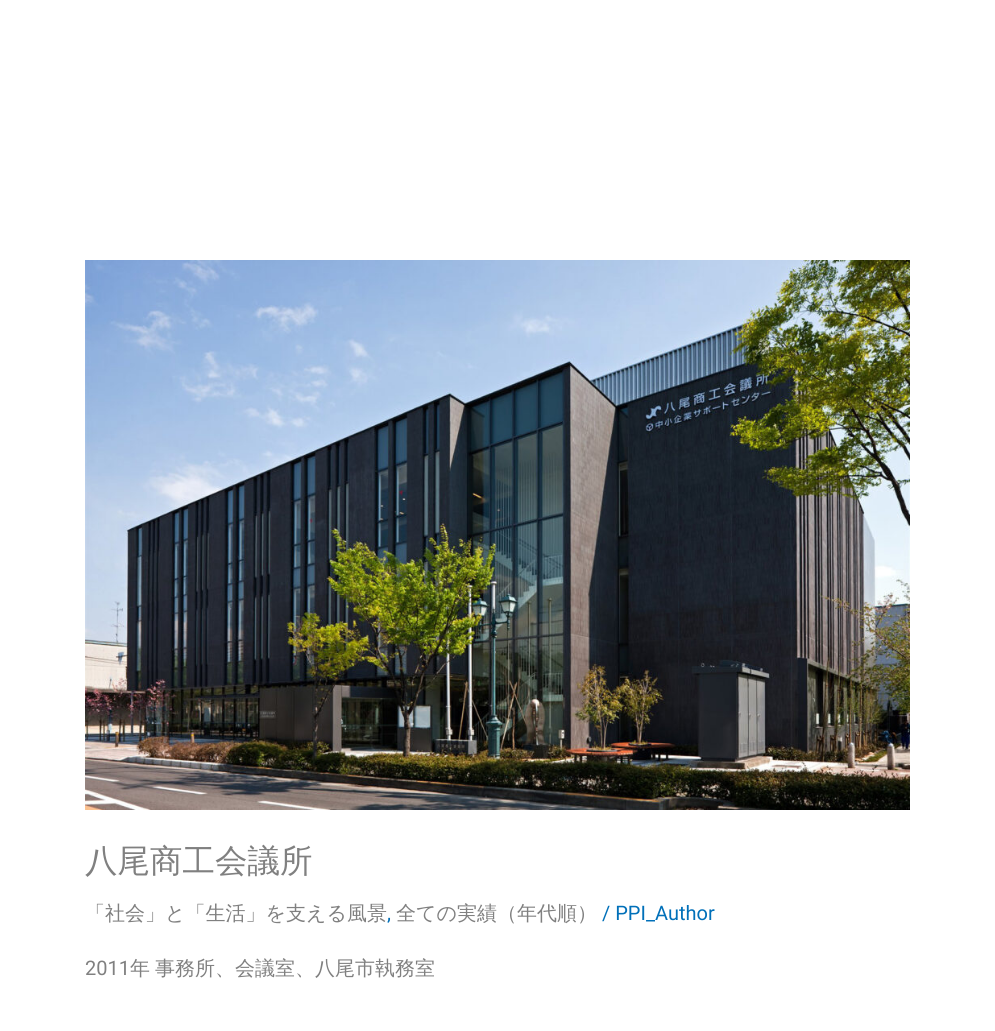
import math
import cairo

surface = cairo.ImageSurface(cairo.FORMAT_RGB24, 995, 1031)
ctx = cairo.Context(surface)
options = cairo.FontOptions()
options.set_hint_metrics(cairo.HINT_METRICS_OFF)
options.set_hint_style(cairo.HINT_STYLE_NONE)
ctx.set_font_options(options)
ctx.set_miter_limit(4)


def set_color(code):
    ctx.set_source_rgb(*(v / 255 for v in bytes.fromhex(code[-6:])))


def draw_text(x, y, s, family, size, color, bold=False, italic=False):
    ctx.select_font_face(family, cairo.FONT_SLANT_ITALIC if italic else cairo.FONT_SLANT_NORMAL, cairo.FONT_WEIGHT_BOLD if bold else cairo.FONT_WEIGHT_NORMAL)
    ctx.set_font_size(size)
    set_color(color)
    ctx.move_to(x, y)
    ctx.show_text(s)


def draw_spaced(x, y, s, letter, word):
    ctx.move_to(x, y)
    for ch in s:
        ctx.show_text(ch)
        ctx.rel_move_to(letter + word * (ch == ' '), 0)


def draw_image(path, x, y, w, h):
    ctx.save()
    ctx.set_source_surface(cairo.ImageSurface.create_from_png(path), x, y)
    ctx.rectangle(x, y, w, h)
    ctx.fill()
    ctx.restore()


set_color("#ffffff")
ctx.paint()
draw_image("assets/img1.png", 85, 260, 825, 550)
draw_text(85, 872, "八尾商工会議所", "WenQuanYi Zen Hei Medium", 32.5, "#808080")
draw_text(85, 920, "「社会」と「生活」を支える風景", "WenQuanYi Zen Hei Medium", 20, "#808080")
draw_text(387, 920, ",", "Roboto", 20, "#0170b9")
draw_text(396, 920, "全ての実績（年代順）", "WenQuanYi Zen Hei Medium", 20, "#808080")
draw_text(602, 920, "/ PPI_Author", "Roboto", 20, "#0170b9")
draw_text(85, 975, "2011", "Roboto", 20, "#808080")
ctx.select_font_face("WenQuanYi Zen Hei Medium")
draw_spaced(130, 975, "年 事務所、会議室、八尾市執務室", 0, -1)
surface.write_to_png("output.png")
